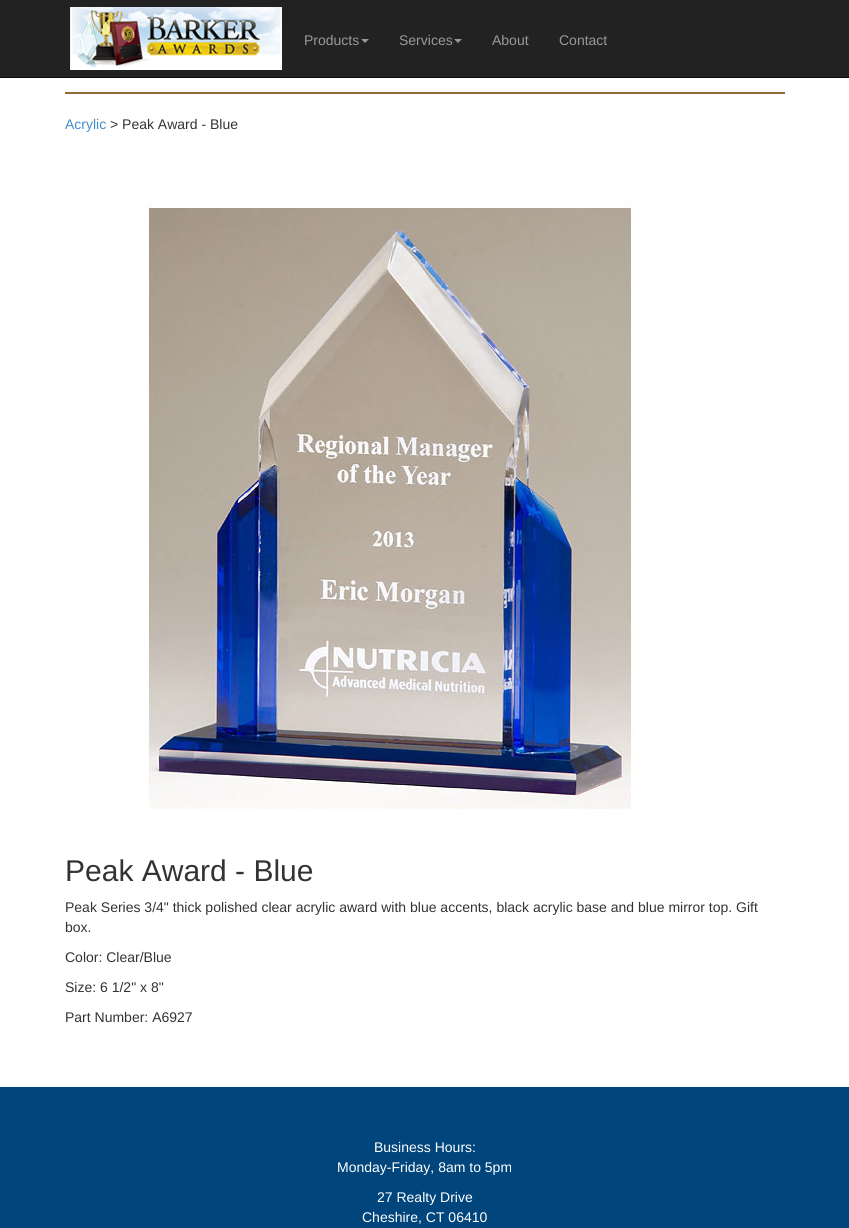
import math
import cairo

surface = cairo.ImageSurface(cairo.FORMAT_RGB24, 849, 1228)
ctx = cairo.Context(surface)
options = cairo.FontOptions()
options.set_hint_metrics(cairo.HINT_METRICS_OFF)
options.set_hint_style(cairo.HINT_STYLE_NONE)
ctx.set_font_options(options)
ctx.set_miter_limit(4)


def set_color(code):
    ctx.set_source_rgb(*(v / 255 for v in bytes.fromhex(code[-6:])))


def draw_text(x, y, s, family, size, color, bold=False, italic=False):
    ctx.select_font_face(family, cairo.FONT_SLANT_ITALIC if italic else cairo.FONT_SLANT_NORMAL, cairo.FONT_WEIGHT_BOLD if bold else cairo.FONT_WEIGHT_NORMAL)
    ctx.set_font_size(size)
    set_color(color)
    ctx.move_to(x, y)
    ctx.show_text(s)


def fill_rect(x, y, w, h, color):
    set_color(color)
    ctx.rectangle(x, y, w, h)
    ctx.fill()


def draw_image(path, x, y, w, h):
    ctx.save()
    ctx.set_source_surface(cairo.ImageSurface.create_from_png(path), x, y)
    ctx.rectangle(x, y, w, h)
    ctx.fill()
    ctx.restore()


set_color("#ffffff")
ctx.paint()
fill_rect(0, 0, 849, 77, "#222222")
fill_rect(0, 77, 849, 1, "#080808")
draw_image("assets/img1.png", 70, 7, 212, 63)
draw_text(304, 45, "Products", "Liberation Sans", 14, "#999999")
ctx.new_path()
ctx.move_to(361, 39)
ctx.line_to(369, 39)
ctx.line_to(365, 43)
ctx.close_path()
ctx.fill()
draw_text(399, 45, "Services", "Liberation Sans", 14, "#999999")
ctx.new_path()
ctx.move_to(454, 39)
ctx.line_to(462, 39)
ctx.line_to(458, 43)
ctx.close_path()
ctx.fill()
draw_text(492, 45, "About", "Liberation Sans", 14, "#999999")
draw_text(559, 45, "Contact", "Liberation Sans", 14, "#999999")
fill_rect(65, 92, 720, 2, "#946b36")
draw_text(65, 129, "Acrylic", "Liberation Sans", 14, "#428bca")
draw_text(110, 129, "> Peak Award - Blue", "Liberation Sans", 14, "#333333")
draw_image("assets/img2.png", 147, 202, 488, 608)
draw_text(65, 881, "Peak Award - Blue", "Liberation Sans", 30, "#333333")
draw_text(65, 912, "Peak Series 3/4\" thick polished clear acrylic award with blue accents, black acrylic base and blue mirror top. Gift", "Liberation Sans", 14, "#333333")
draw_text(65, 932, "box.", "Liberation Sans", 14, "#333333")
draw_text(65, 962, "Color: Clear/Blue", "Liberation Sans", 14, "#333333")
draw_text(65, 992, "Size: 6 1/2\" x 8\"", "Liberation Sans", 14, "#333333")
draw_text(65, 1022, "Part Number: A6927", "Liberation Sans", 14, "#333333")
fill_rect(0, 1087, 849, 141, "#00457c")
draw_text(374, 1152, "Business Hours:", "Liberation Sans", 14, "#ffffff")
draw_text(337, 1172, "Monday-Friday, 8am to 5pm", "Liberation Sans", 14, "#ffffff")
draw_text(377, 1202, "27 Realty Drive", "Liberation Sans", 14, "#ffffff")
draw_text(362, 1222, "Cheshire, CT 06410", "Liberation Sans", 14, "#ffffff")
surface.write_to_png("output.png")
